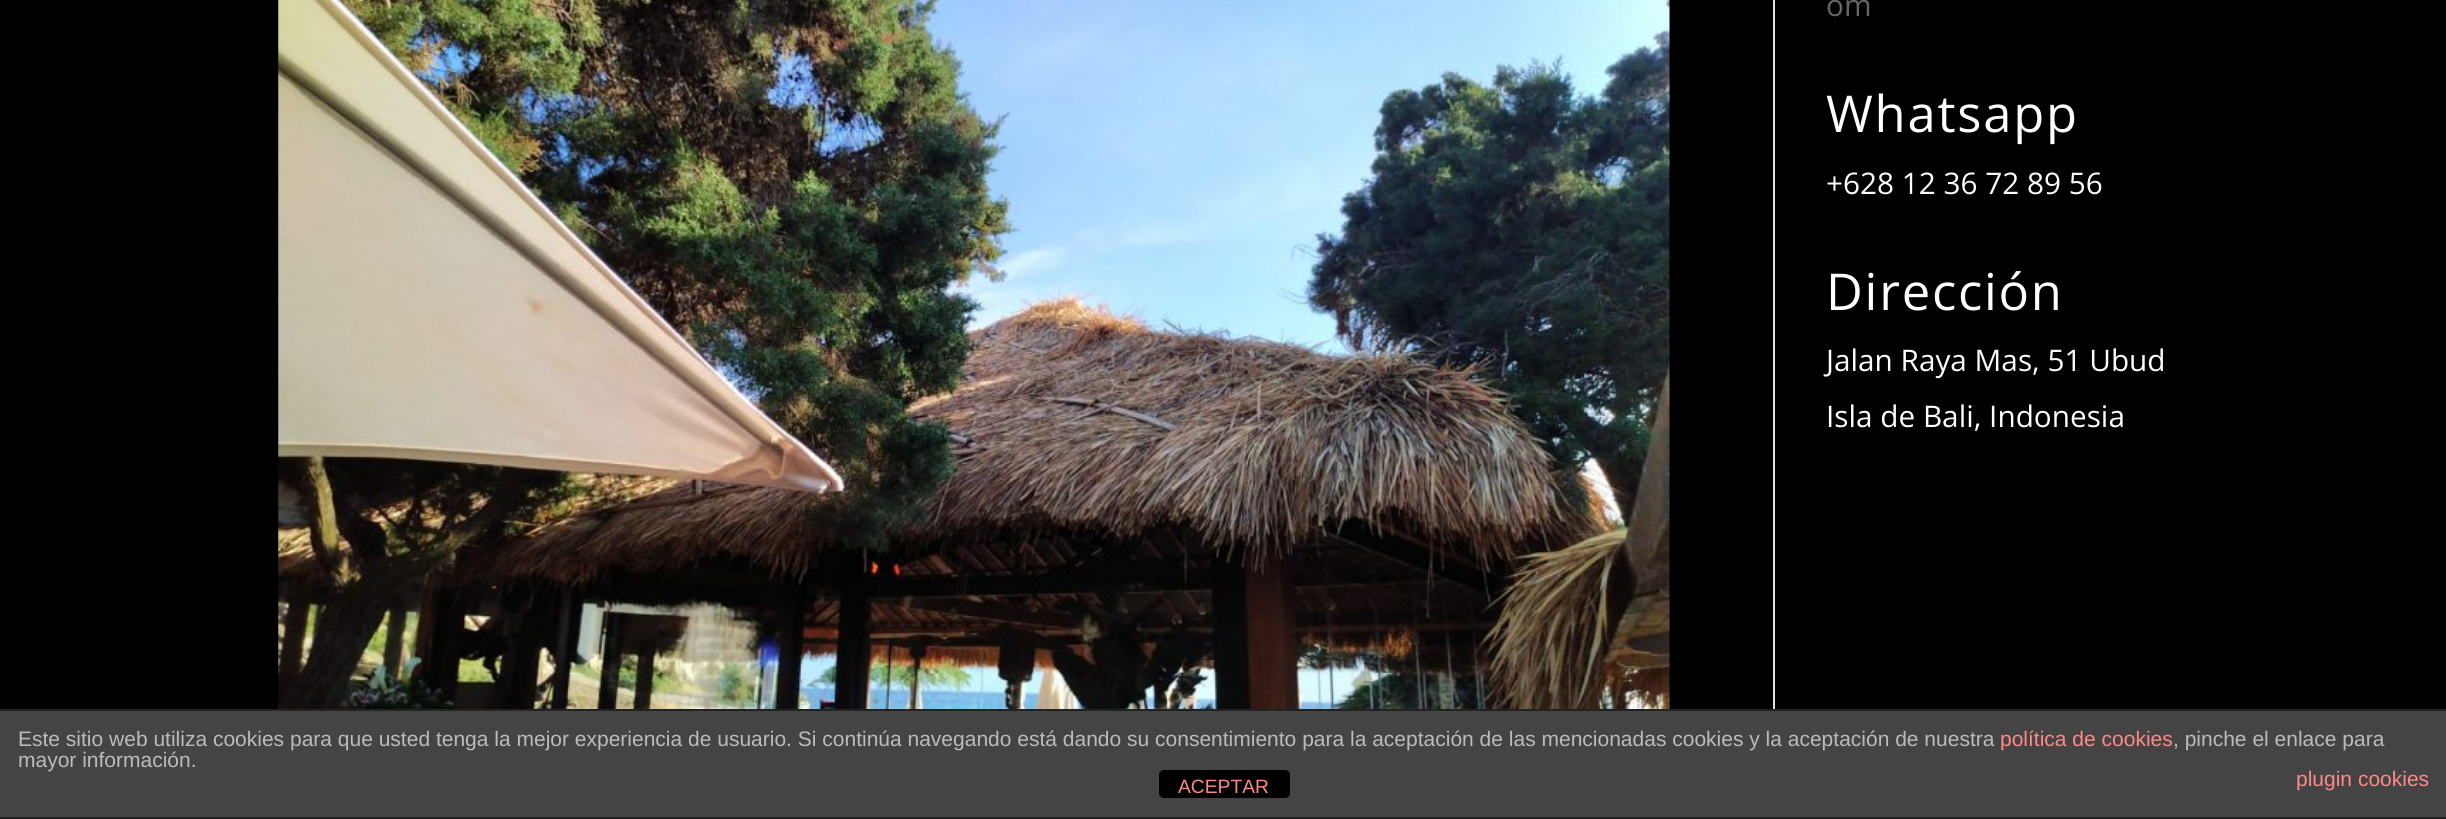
import math
import cairo

surface = cairo.ImageSurface(cairo.FORMAT_RGB24, 2446, 819)
ctx = cairo.Context(surface)
options = cairo.FontOptions()
options.set_hint_metrics(cairo.HINT_METRICS_OFF)
options.set_hint_style(cairo.HINT_STYLE_NONE)
ctx.set_font_options(options)
ctx.set_miter_limit(4)


def set_color(code):
    ctx.set_source_rgb(*(v / 255 for v in bytes.fromhex(code[-6:])))


def draw_text(x, y, s, family, size, color, bold=False, italic=False):
    ctx.select_font_face(family, cairo.FONT_SLANT_ITALIC if italic else cairo.FONT_SLANT_NORMAL, cairo.FONT_WEIGHT_BOLD if bold else cairo.FONT_WEIGHT_NORMAL)
    ctx.set_font_size(size)
    set_color(color)
    ctx.move_to(x, y)
    ctx.show_text(s)


def draw_spaced(x, y, s, letter, word):
    ctx.move_to(x, y)
    for ch in s:
        ctx.show_text(ch)
        ctx.rel_move_to(letter + word * (ch == ' '), 0)


def fill_rect(x, y, w, h, color):
    set_color(color)
    ctx.rectangle(x, y, w, h)
    ctx.fill()


def rounded_rect(x, y, w, h, r):
    ctx.new_sub_path()
    for i, (u, v) in enumerate([(x + w - r, y + h - r), (x + r, y + h - r), (x + r, y + r), (x + w - r, y + r)]):
        ctx.arc(u, v, r, i * math.pi / 2, (i + 1) * math.pi / 2)
    ctx.close_path()


def draw_image(path, x, y, w, h):
    ctx.save()
    ctx.set_source_surface(cairo.ImageSurface.create_from_png(path), x, y)
    ctx.rectangle(x, y, w, h)
    ctx.fill()
    ctx.restore()


set_color("#000000")
ctx.paint()
fill_rect(1773, 0, 2, 709, "#e2e2e2")
draw_image("assets/img1.png", 278, 0, 1392, 709)
draw_text(1826, 16, "om", "Open Sans", 29.75, "#666666")
ctx.set_font_size(50.75)
set_color("#ffffff")
draw_spaced(1826, 132, "Whatsapp", 1.75, 0)
draw_text(1826, 194, "+628 12 36 72 89 56", "Open Sans", 29.75, "#ffffff")
ctx.set_font_size(50.75)
draw_spaced(1826, 310, "Dirección", 1.75, 0)
draw_text(1826, 371, "Jalan Raya Mas, 51 Ubud", "Open Sans", 29.75, "#ffffff")
draw_text(1826, 427, "Isla de Bali, Indonesia", "Open Sans", 29.75, "#ffffff")
fill_rect(0, 711, 2446, 106, "#444444")
fill_rect(0, 709, 2446, 2, "#222222")
fill_rect(0, 817, 2446, 2, "#222222")
draw_text(18, 746, "Este sitio web utiliza cookies para que usted tenga la mejor experiencia de usuario. Si continúa navegando está dando su consentimiento para la aceptación de las mencionadas cookies y la aceptación de nuestra", "Liberation Sans", 21, "#bbbbbb")
draw_text(2000, 746, "política de cookies", "Liberation Sans", 21, "#ff8888")
draw_text(2173, 746, ", pinche el enlace para", "Liberation Sans", 21, "#bbbbbb")
draw_text(18, 767, "mayor información.", "Liberation Sans", 21, "#bbbbbb")
draw_text(2296, 786, "plugin cookies", "Liberation Sans", 21, "#ff8888")
set_color("#000000")
rounded_rect(1159, 770, 131, 28, 5)
ctx.fill()
draw_text(1178, 793, "ACEPTAR", "Liberation Sans", 19.25, "#ff8888")
surface.write_to_png("output.png")
